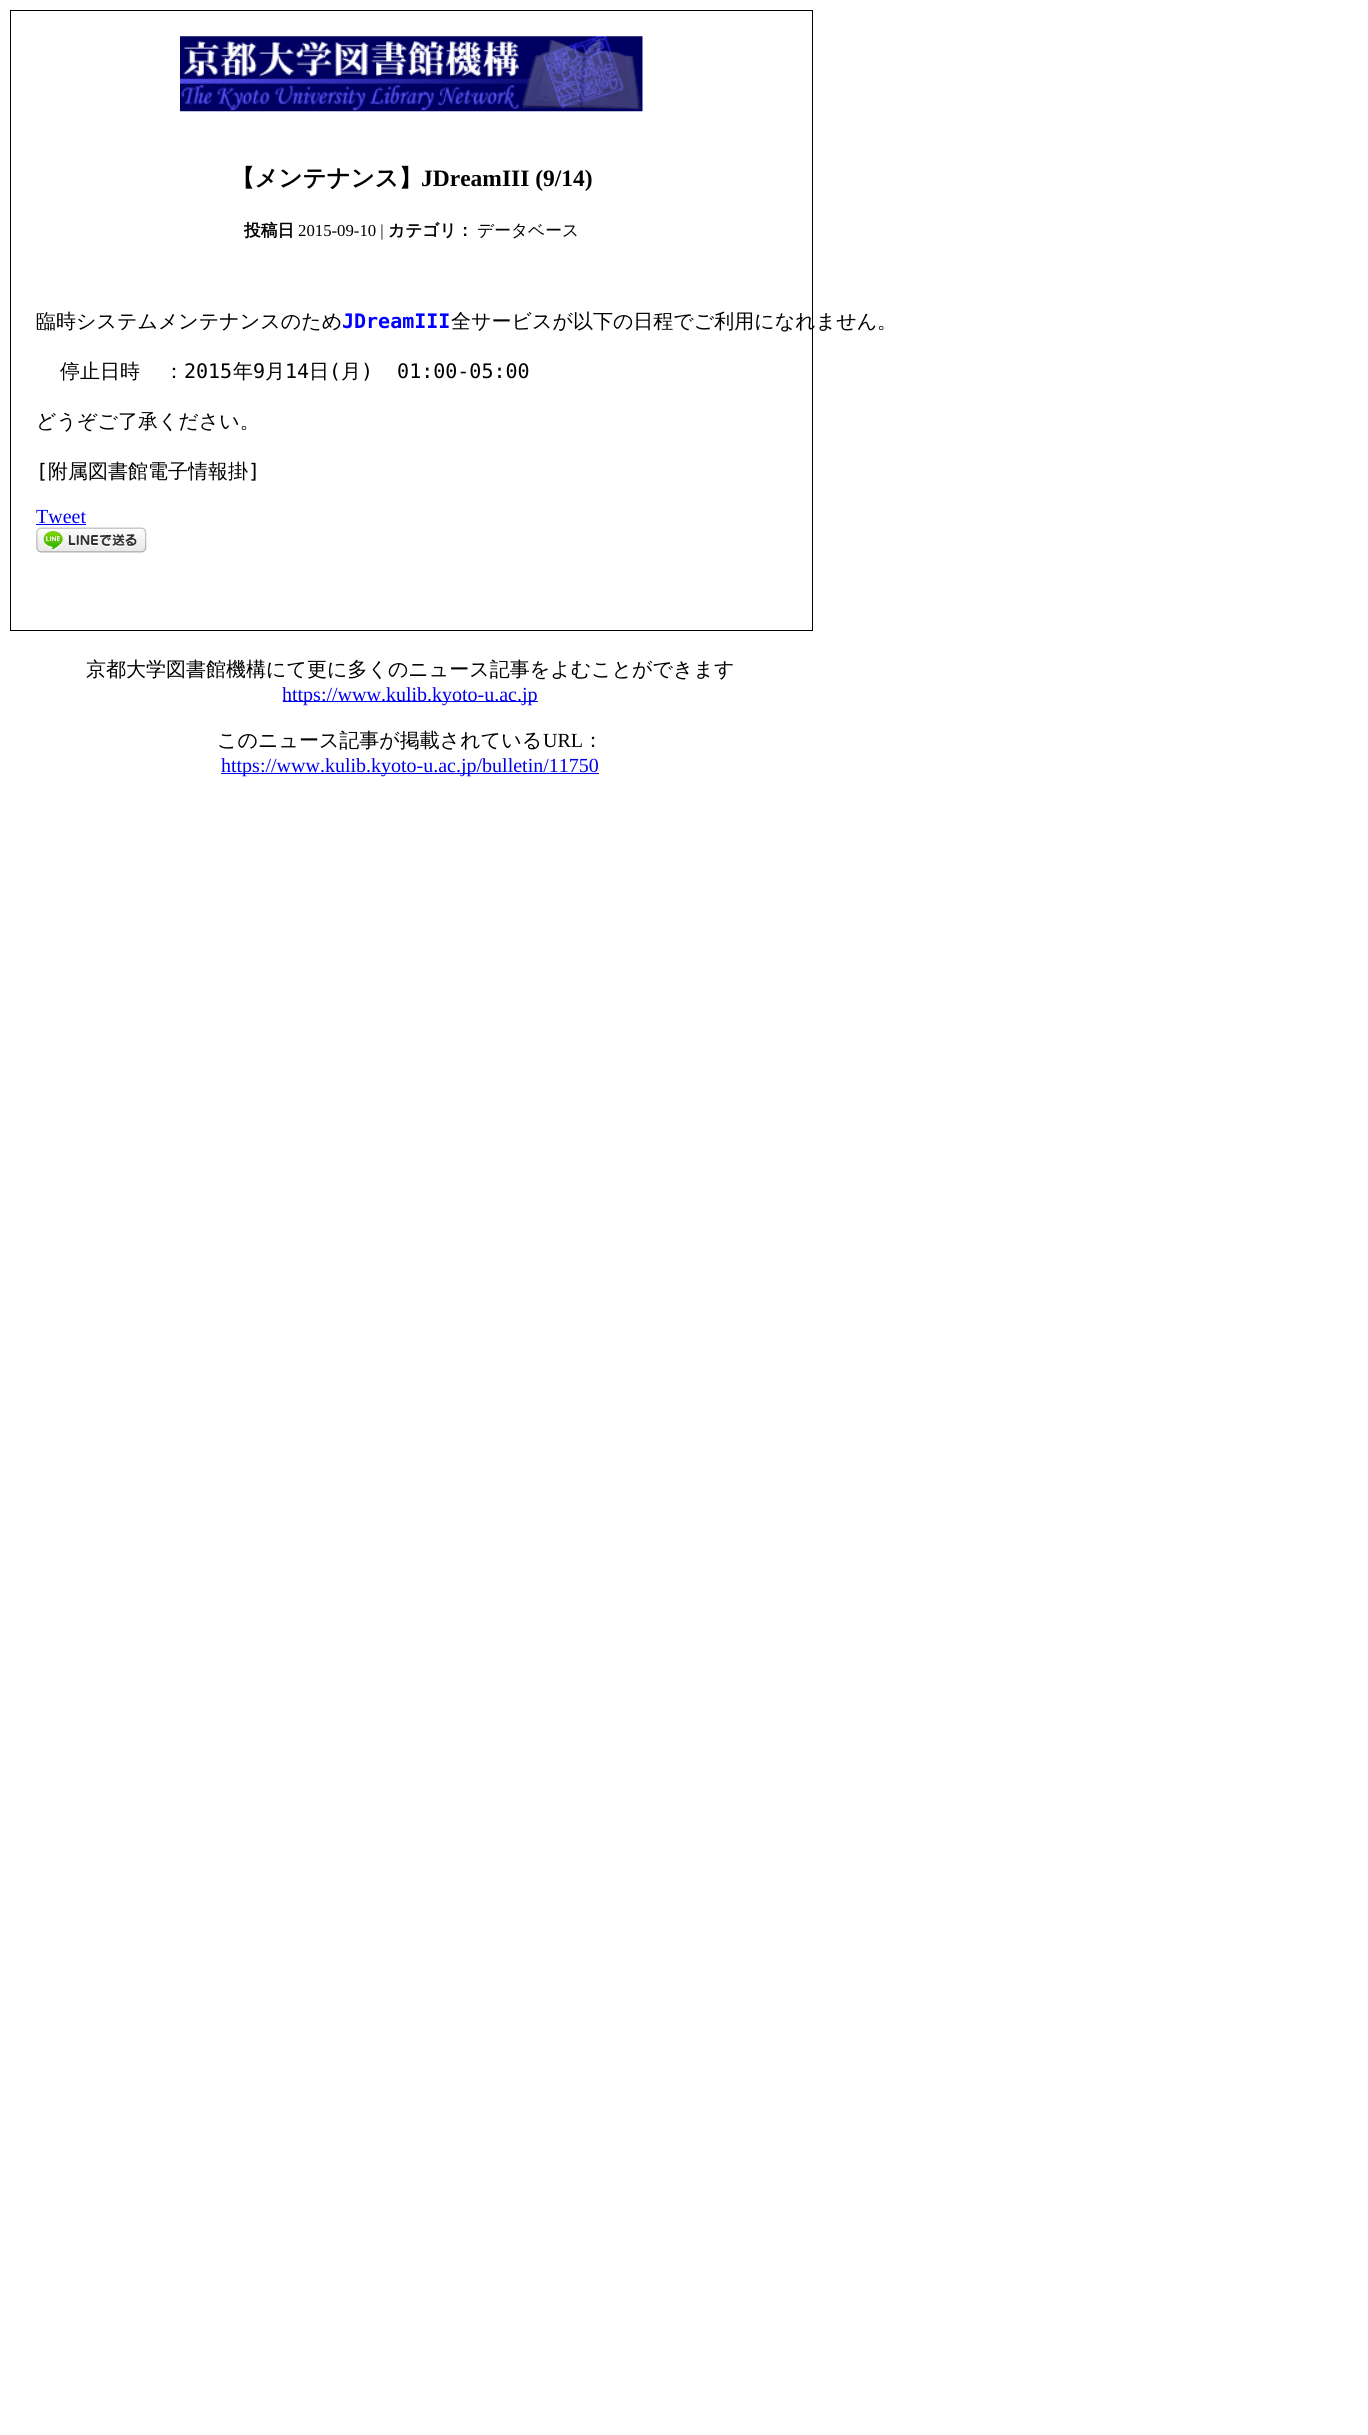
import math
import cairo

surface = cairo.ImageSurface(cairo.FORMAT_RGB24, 1368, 2435)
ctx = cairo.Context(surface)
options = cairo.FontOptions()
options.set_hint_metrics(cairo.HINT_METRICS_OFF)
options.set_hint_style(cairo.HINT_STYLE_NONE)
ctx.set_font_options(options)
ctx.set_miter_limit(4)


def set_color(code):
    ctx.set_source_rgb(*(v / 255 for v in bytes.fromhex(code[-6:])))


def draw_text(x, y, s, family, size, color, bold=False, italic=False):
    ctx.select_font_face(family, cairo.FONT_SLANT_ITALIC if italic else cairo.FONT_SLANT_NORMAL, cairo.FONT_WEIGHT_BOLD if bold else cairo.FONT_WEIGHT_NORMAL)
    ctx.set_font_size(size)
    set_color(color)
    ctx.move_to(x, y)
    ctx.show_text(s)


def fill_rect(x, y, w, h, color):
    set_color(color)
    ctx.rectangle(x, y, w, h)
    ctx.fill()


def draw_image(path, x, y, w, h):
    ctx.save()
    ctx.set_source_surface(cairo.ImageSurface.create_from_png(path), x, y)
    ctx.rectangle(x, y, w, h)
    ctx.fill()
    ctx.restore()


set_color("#ffffff")
ctx.paint()
ctx.rectangle(10.5, 10.5, 802, 620)
set_color("#000000")
ctx.set_line_width(1)
ctx.stroke()
draw_image("assets/img1.png", 180, 36, 463, 76)
draw_text(231, 186, "【メンテナンス】", "WenQuanYi Zen Hei", 23.5, "#000000", bold=True)
draw_text(421, 186, "JDreamIII (9/14)", "Liberation Serif", 23.5, "#000000", bold=True)
draw_text(244, 236, "投稿日", "WenQuanYi Zen Hei", 16.75, "#000000", bold=True)
draw_text(298, 236, "2015-09-10 |", "Liberation Serif", 16.75, "#000000")
draw_text(388, 236, "カテゴリ：", "WenQuanYi Zen Hei", 16.75, "#000000", bold=True)
draw_text(477, 236, "データベース", "WenQuanYi Zen Hei Medium", 16.75, "#000000")
draw_text(36, 328, "臨時システムメンテナンスのため", "WenQuanYi Zen Hei Medium", 20, "#000000")
draw_text(342, 328, "JDreamIII", "DejaVu Sans Mono", 20, "#0000ff", bold=True)
draw_text(451, 328, "全サービスが以下の日程でご利用になれません。", "WenQuanYi Zen Hei Medium", 20, "#000000")
draw_text(60, 378, "停止日時", "WenQuanYi Zen Hei Medium", 20, "#000000")
draw_text(164, 378, "：", "WenQuanYi Zen Hei Medium", 20, "#000000")
draw_text(184, 378, "2015", "DejaVu Sans Mono", 20, "#000000")
draw_text(233, 378, "年", "WenQuanYi Zen Hei Medium", 20, "#000000")
draw_text(253, 378, "9", "DejaVu Sans Mono", 20, "#000000")
draw_text(265, 378, "月", "WenQuanYi Zen Hei Medium", 20, "#000000")
draw_text(285, 378, "14", "DejaVu Sans Mono", 20, "#000000")
draw_text(309, 378, "日", "WenQuanYi Zen Hei Medium", 20, "#000000")
draw_text(329, 378, "(", "DejaVu Sans Mono", 20, "#000000")
draw_text(341, 378, "月", "WenQuanYi Zen Hei Medium", 20, "#000000")
draw_text(361, 378, ")  01:00-05:00", "DejaVu Sans Mono", 20, "#000000")
draw_text(36, 428, "どうぞご了承ください。", "WenQuanYi Zen Hei Medium", 20, "#000000")
draw_text(36, 478, "[", "DejaVu Sans Mono", 20, "#000000")
draw_text(48, 478, "附属図書館電子情報掛", "WenQuanYi Zen Hei Medium", 20, "#000000")
draw_text(248, 478, "]", "DejaVu Sans Mono", 20, "#000000")
draw_text(36, 523, "Tweet", "Liberation Serif", 20, "#0000ee")
fill_rect(36, 524, 50, 1, "#0000ee")
draw_image("assets/img2.png", 36, 527, 111, 26)
draw_text(86, 676, "京都大学図書館機構にて更に多くのニュース記事をよむことができます", "WenQuanYi Zen Hei Medium", 20, "#000000")
fill_rect(283, 701, 255, 1, "#0000ee")
draw_text(282, 701, "https://www.kulib.kyoto-u.ac.jp", "Liberation Serif", 20, "#0000ee")
draw_text(217, 747, "このニュース記事が掲載されている", "WenQuanYi Zen Hei Medium", 20, "#000000")
draw_text(543, 747, "URL", "Liberation Serif", 20, "#000000")
draw_text(583, 747, "：", "WenQuanYi Zen Hei Medium", 20, "#000000")
fill_rect(221, 773, 378, 1, "#0000ee")
draw_text(221, 772, "https://www.kulib.kyoto-u.ac.jp/bulletin/11750", "Liberation Serif", 20, "#0000ee")
surface.write_to_png("output.png")
